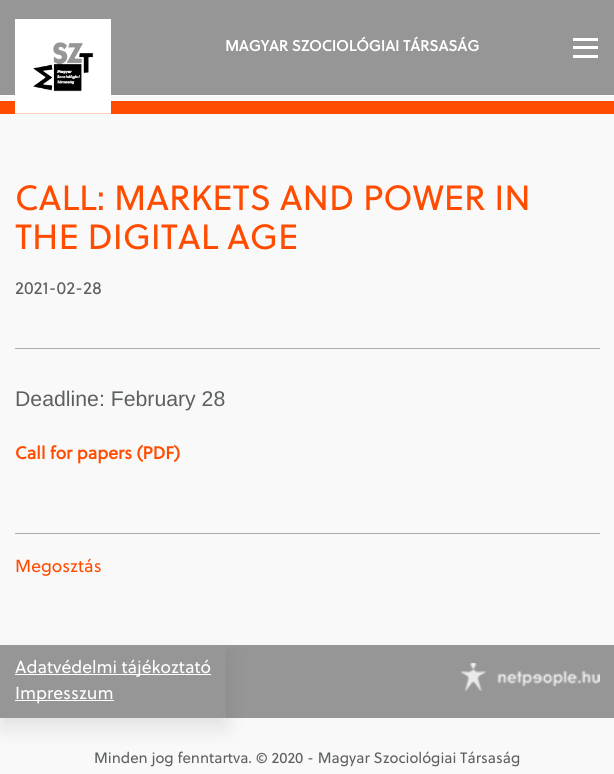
import math
import cairo

surface = cairo.ImageSurface(cairo.FORMAT_RGB24, 614, 774)
ctx = cairo.Context(surface)
options = cairo.FontOptions()
options.set_hint_metrics(cairo.HINT_METRICS_OFF)
options.set_hint_style(cairo.HINT_STYLE_NONE)
ctx.set_font_options(options)
ctx.set_miter_limit(4)


def set_color(code):
    ctx.set_source_rgb(*(v / 255 for v in bytes.fromhex(code[-6:])))


def draw_text(x, y, s, family, size, color, bold=False, italic=False):
    ctx.select_font_face(family, cairo.FONT_SLANT_ITALIC if italic else cairo.FONT_SLANT_NORMAL, cairo.FONT_WEIGHT_BOLD if bold else cairo.FONT_WEIGHT_NORMAL)
    ctx.set_font_size(size)
    set_color(color)
    ctx.move_to(x, y)
    ctx.show_text(s)


def fill_rect(x, y, w, h, color):
    set_color(color)
    ctx.rectangle(x, y, w, h)
    ctx.fill()


def rounded_rect(x, y, w, h, r):
    ctx.new_sub_path()
    for i, (u, v) in enumerate([(x + w - r, y + h - r), (x + r, y + h - r), (x + r, y + r), (x + w - r, y + r)]):
        ctx.arc(u, v, r, i * math.pi / 2, (i + 1) * math.pi / 2)
    ctx.close_path()


def draw_shadow(x, y, w, h, r, blur, alpha):
    ctx.push_group_with_content(cairo.CONTENT_ALPHA)
    ctx.set_operator(cairo.OPERATOR_SOURCE)
    for i in range(15, -16, -2):
        e = blur * i / 6
        if min(w, h) + 2 * e > 0:
            ctx.set_source_rgba(0, 0, 0, alpha * math.erfc((i - 1) / 8.5) / 2)
            rounded_rect(x - e, y - e, w + 2 * e, h + 2 * e, max(0, min(r + e + blur * .6, min(w, h) / 2 + e)))
            ctx.fill()
    ctx.mask(ctx.pop_group())


def draw_image(path, x, y, w, h):
    ctx.save()
    ctx.set_source_surface(cairo.ImageSurface.create_from_png(path), x, y)
    ctx.rectangle(x, y, w, h)
    ctx.fill()
    ctx.restore()


set_color("#f9f9f9")
ctx.paint()
fill_rect(0, 0, 614, 95, "#969696")
fill_rect(0, 101, 614, 13, "#ff4c00")
draw_image("assets/img1.png", 15, 19, 96, 95)
draw_text(225, 51, "MAGYAR SZOCIOLÓGIAI TÁRSASÁG", "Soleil", 15, "#ffffff", bold=True)
fill_rect(573, 38, 25, 3, "#ffffff")
fill_rect(573, 46, 25, 3, "#ffffff")
fill_rect(573, 55, 25, 3, "#ffffff")
fill_rect(0, 95, 614, 1, "#ffffff")
draw_text(15, 210, "CALL: MARKETS AND POWER IN", "Soleil", 35, "#ff4c00")
draw_text(15, 249, "THE DIGITAL AGE", "Soleil", 35, "#ff4c00")
draw_text(15, 294, "2021-02-28", "Soleil", 17.5, "#5d6061")
fill_rect(15, 348, 585, 1, "#adadad")
draw_text(15, 406, "Deadline: February 28", "Liberation Sans", 21.25, "#5d6061")
draw_text(15, 459, "Call for papers (PDF)", "Soleil", 17.5, "#ff4c00", bold=True)
fill_rect(15, 533, 585, 1, "#adadad")
draw_text(15, 572, "Megosztás", "Soleil", 17.5, "#ff4c00")
fill_rect(0, 645, 614, 73, "#969696")
ctx.save()
ctx.set_fill_rule(cairo.FILL_RULE_EVEN_ODD)
ctx.new_path()
ctx.move_to(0, 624)
ctx.line_to(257, 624)
ctx.line_to(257, 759)
ctx.line_to(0, 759)
ctx.close_path()
ctx.move_to(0, 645)
ctx.line_to(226, 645)
ctx.line_to(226, 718)
ctx.line_to(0, 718)
ctx.close_path()
ctx.clip()
set_color("#0a0a0a")
draw_shadow(0, 655, 226, 73, 0, 10, 0.1)
ctx.restore()
fill_rect(15, 674, 196, 1, "#ffffff")
draw_text(15, 673, "Adatvédelmi tájékoztató", "Soleil", 17.5, "#ffffff")
fill_rect(15, 700, 99, 1, "#ffffff")
draw_text(15, 699, "Impresszum", "Soleil", 17.5, "#ffffff")
draw_image("assets/img2.png", 461, 663, 139, 28)
draw_text(94, 763, "Minden jog fenntartva. © 2020 - Magyar Szociológiai Társaság", "Soleil", 15, "#5d6061")
surface.write_to_png("output.png")
